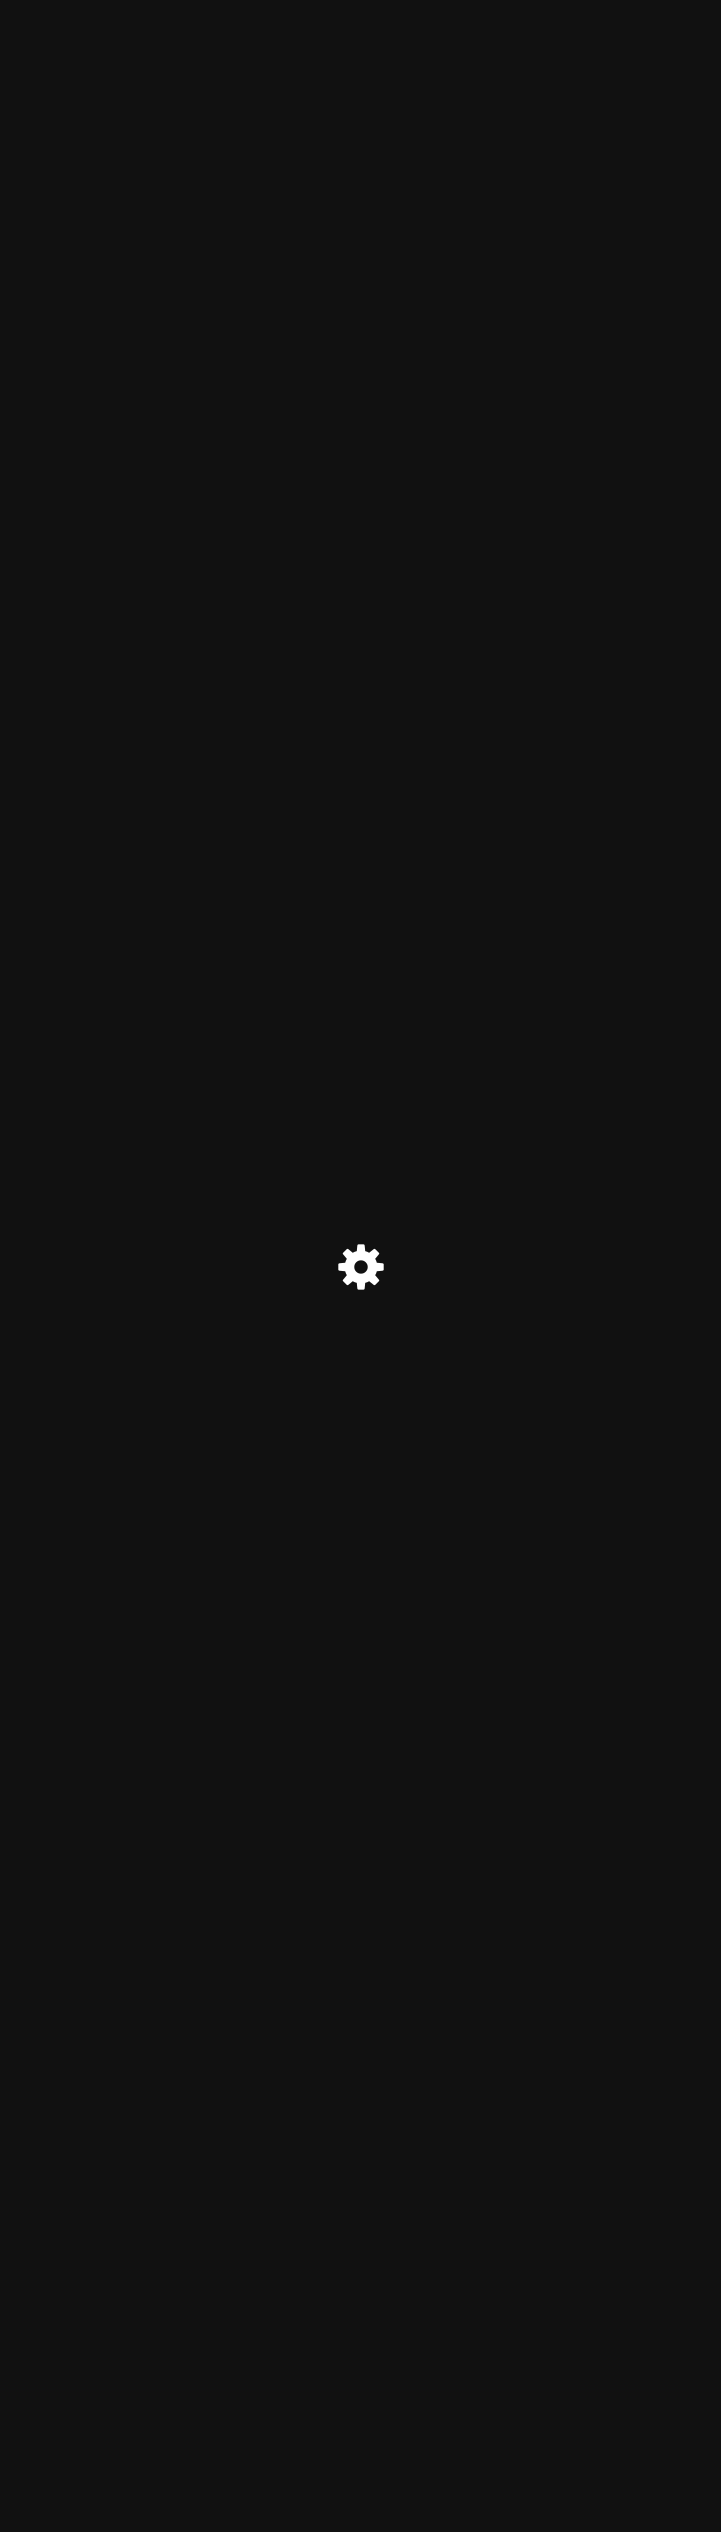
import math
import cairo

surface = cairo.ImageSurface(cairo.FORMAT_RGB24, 721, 2532)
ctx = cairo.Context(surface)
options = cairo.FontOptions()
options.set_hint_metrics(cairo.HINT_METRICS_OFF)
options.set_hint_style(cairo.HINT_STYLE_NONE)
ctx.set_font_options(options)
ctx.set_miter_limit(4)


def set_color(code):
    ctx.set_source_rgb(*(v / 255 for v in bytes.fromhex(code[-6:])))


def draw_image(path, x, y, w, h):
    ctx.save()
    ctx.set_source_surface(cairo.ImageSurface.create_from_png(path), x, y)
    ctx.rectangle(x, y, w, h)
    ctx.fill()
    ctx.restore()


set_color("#111111")
ctx.paint()
draw_image("assets/img1.png", 338, 1244, 46, 46)
surface.write_to_png("output.png")
